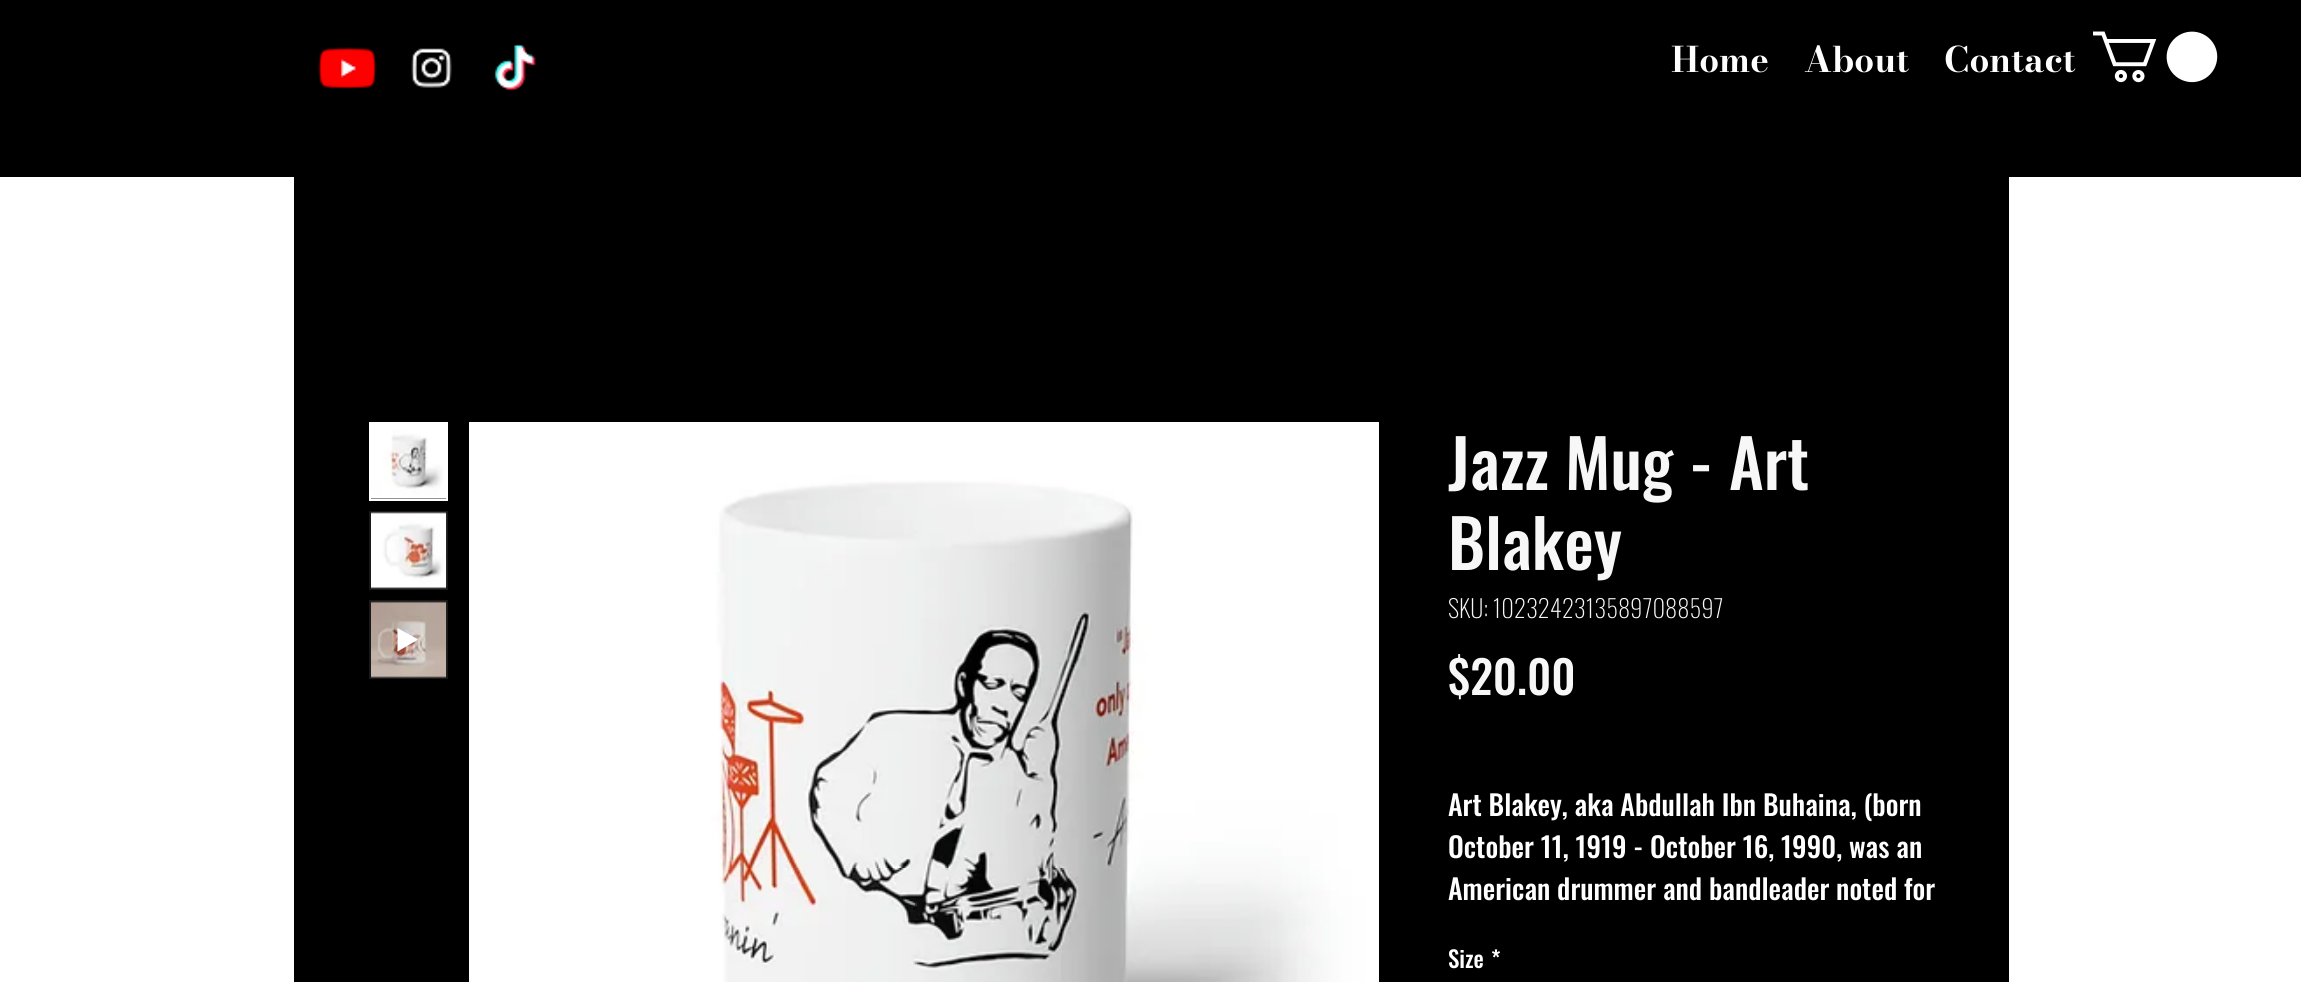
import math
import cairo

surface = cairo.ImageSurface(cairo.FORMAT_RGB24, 2301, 982)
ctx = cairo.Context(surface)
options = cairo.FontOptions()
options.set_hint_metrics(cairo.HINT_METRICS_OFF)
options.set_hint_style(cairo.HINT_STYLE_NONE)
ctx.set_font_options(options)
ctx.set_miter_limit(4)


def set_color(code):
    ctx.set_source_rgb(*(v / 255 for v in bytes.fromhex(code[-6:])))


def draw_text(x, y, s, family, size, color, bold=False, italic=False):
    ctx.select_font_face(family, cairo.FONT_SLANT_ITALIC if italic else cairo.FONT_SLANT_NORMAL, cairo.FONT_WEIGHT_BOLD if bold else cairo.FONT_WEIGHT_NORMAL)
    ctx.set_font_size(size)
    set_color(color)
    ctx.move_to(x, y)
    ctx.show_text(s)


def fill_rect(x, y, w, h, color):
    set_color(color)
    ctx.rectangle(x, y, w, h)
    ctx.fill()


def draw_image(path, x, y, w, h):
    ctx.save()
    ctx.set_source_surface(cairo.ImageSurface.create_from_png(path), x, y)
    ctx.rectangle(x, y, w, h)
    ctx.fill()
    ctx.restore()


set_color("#ffffff")
ctx.paint()
fill_rect(0, 0, 2301, 177, "#000000")
draw_image("assets/img1.png", 318, 47, 59, 43)
draw_image("assets/img2.png", 411, 48, 41, 40)
draw_image("assets/img3.png", 494, 44, 42, 48)
draw_text(1671, 72, "Home", "Bodoni Moda", 35, "#ffffff", bold=True)
draw_text(1804, 72, "About", "Bodoni Moda", 35, "#ffffff", bold=True)
draw_text(1944, 72, "Contact", "Bodoni Moda", 35, "#ffffff", bold=True)
draw_image("assets/img4.png", 2093, 31, 125, 52)
fill_rect(294, 177, 1715, 805, "#000000")
fill_rect(371, 498, 75, 1, "#191919")
ctx.rectangle(370, 423, 77, 77)
set_color("#ffffff")
ctx.stroke()
draw_image("assets/img5.png", 371, 424, 75, 75)
fill_rect(369, 511, 79, 79, "#191919")
draw_image("assets/img6.png", 371, 512, 76, 77)
fill_rect(369, 600, 79, 79, "#191919")
draw_image("assets/img7.png", 371, 601, 76, 77)
set_color("#ffffff")
ctx.new_path()
ctx.move_to(397.5, 628)
ctx.line_to(397.5, 651.5)
ctx.line_to(418, 639.5)
ctx.close_path()
ctx.fill()
draw_image("assets/img8.png", 469, 422, 910, 560)
draw_text(1448, 490, "Jazz Mug - Art", "Oswald Medium", 66.5, "#f7f7f7")
draw_text(1448, 570, "Blakey", "Oswald Medium", 66.5, "#f7f7f7")
draw_text(1448, 618, "SKU: 10232423135897088597", "Oswald ExtraLight", 24.5, "#f7f7f7")
draw_text(1448, 695, "$20.00", "Oswald Medium", 45.5, "#f7f7f7")
draw_text(1448, 816, "Art Blakey, aka Abdullah Ibn Buhaina, (born", "Oswald Medium", 28, "#ffffff")
draw_text(1448, 858, "October 11, 1919 - October 16, 1990, was an", "Oswald Medium", 28, "#ffffff")
draw_text(1448, 900, "American drummer and bandleader noted for", "Oswald Medium", 28, "#ffffff")
draw_text(1448, 968, "Size", "Oswald Medium", 23, "#ffffff")
draw_text(1491, 968, "*", "Oswald Medium", 23, "#ffffff")
surface.write_to_png("output.png")
